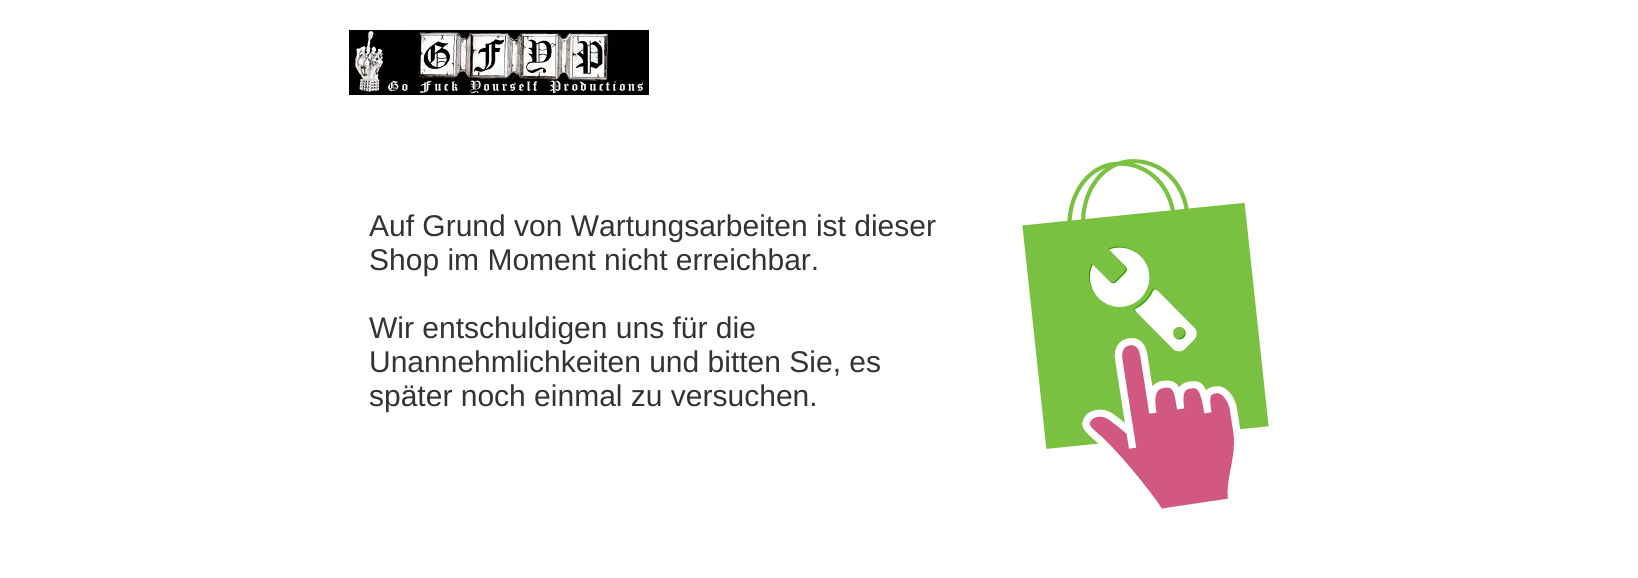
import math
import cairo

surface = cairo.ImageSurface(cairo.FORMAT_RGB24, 1638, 578)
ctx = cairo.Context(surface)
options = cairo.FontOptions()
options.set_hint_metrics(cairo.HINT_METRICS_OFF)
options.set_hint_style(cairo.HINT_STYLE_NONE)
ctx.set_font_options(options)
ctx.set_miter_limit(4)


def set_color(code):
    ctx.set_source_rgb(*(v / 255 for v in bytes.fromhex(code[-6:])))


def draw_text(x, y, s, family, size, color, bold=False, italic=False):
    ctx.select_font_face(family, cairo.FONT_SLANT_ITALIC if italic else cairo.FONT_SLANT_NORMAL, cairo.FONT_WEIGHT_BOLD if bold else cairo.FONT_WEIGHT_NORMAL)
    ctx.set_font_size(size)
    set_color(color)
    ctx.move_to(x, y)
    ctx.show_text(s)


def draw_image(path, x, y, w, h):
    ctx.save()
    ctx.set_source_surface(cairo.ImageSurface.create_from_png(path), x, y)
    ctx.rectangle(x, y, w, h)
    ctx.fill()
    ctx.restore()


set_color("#ffffff")
ctx.paint()
draw_image("assets/img1.png", 349, 30, 300, 65)
draw_image("assets/img2.png", 1022, 159, 247, 350)
draw_text(369, 236, "Auf Grund von Wartungsarbeiten ist dieser", "Liberation Sans", 30, "#333333")
draw_text(369, 270, "Shop im Moment nicht erreichbar.", "Liberation Sans", 30, "#333333")
draw_text(369, 338, "Wir entschuldigen uns für die", "Liberation Sans", 30, "#333333")
draw_text(369, 372, "Unannehmlichkeiten und bitten Sie, es", "Liberation Sans", 30, "#333333")
draw_text(369, 406, "später noch einmal zu versuchen.", "Liberation Sans", 30, "#333333")
surface.write_to_png("output.png")
